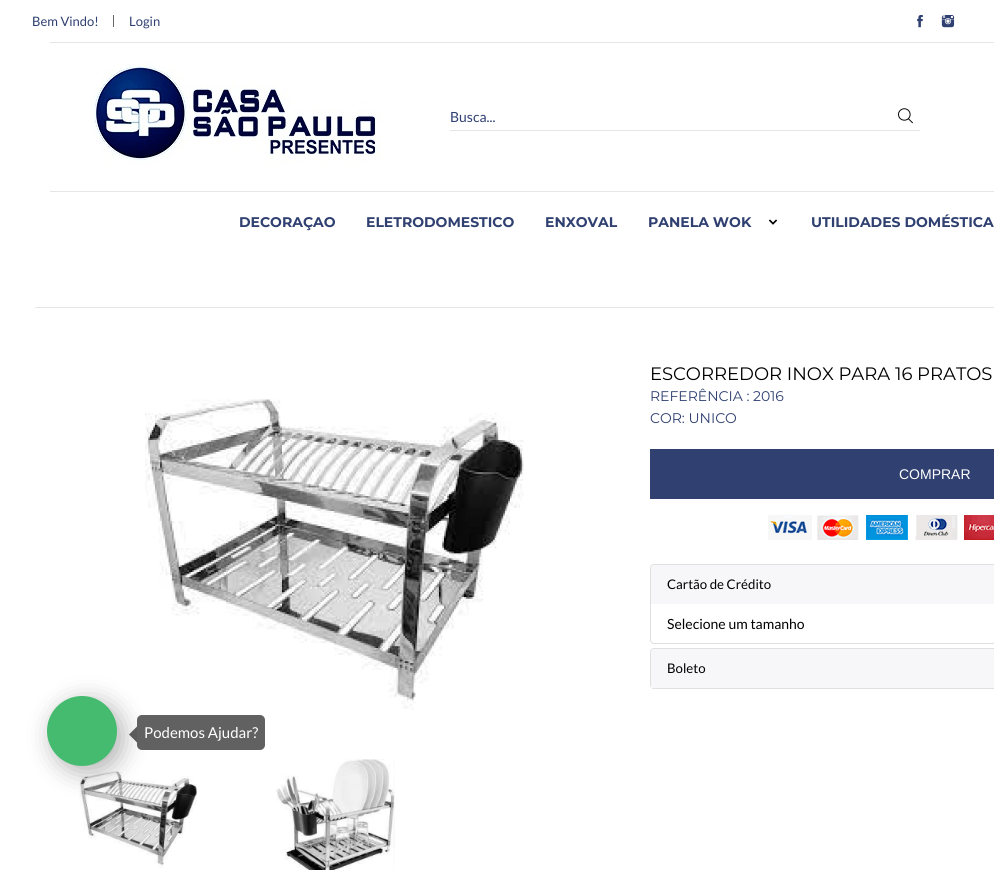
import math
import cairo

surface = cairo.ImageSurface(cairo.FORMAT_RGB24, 994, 870)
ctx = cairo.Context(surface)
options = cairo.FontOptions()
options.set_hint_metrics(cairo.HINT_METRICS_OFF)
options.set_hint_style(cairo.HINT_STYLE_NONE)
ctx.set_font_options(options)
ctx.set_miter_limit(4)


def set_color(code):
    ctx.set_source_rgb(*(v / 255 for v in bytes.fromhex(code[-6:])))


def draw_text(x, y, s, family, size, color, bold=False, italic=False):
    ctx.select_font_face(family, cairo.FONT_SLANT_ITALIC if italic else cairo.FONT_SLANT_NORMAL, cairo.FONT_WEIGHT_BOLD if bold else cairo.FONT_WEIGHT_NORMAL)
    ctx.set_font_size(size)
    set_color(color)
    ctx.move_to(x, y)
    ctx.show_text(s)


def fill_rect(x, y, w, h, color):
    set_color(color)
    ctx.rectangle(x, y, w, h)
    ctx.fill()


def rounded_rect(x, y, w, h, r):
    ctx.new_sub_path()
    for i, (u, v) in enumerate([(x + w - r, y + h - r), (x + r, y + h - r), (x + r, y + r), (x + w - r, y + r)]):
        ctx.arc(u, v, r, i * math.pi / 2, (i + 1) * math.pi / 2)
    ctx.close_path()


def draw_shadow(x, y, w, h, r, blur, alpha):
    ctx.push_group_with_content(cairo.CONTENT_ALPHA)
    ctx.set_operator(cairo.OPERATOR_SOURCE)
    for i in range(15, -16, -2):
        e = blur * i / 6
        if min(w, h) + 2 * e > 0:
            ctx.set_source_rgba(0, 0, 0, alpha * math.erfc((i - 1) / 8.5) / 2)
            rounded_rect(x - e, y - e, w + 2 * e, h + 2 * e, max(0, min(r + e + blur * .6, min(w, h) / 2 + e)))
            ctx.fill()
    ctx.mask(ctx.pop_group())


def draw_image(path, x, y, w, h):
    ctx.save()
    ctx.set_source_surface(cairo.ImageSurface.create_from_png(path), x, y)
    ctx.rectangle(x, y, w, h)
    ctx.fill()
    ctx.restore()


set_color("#ffffff")
ctx.paint()
draw_text(32, 26, "Bem Vindo!", "Lato", 13, "#2f4071")
fill_rect(113, 15, 1, 12, "#666666")
draw_text(129, 26, "Login", "Lato", 13, "#2f4071")
draw_image("assets/img1.png", 917, 15, 6, 13)
draw_image("assets/img2.png", 941, 15, 14, 13)
fill_rect(50, 42, 944, 1, "#e6e6e6")
fill_rect(50, 191, 944, 1, "#e6e6e6")
draw_image("assets/img3.png", 91, 62, 293, 103)
fill_rect(450, 130, 470, 1, "#e6e6e6")
draw_text(450, 122, "Busca...", "Lato", 14, "#2f4071")
draw_image("assets/img4.png", 898, 108, 15, 16)
draw_text(239, 227, "DECORAÇAO", "Montserrat", 14, "#2f4071", bold=True)
draw_text(366, 227, "ELETRODOMESTICO", "Montserrat", 14, "#2f4071", bold=True)
draw_text(545, 227, "ENXOVAL", "Montserrat", 14, "#2f4071", bold=True)
draw_text(648, 227, "PANELA WOK", "Montserrat", 14, "#2f4071", bold=True)
draw_image("assets/img5.png", 768, 219, 10, 6)
draw_text(811, 227, "UTILIDADES DOMÉSTICA", "Montserrat", 14, "#2f4071", bold=True)
fill_rect(35, 307, 959, 1, "#e6e6e6")
draw_image("assets/img6.png", 145, 399, 379, 311)
draw_image("assets/img7.png", 79, 771, 118, 97)
draw_image("assets/img8.png", 276, 759, 119, 111)
draw_text(650, 380, "ESCORREDOR INOX PARA 16 PRATOS", "Montserrat", 18, "#000000")
draw_text(650, 401, "REFERÊNCIA : 2016", "Montserrat", 14, "#2f4071")
draw_text(650, 423, "COR: UNICO", "Montserrat", 14, "#2f4071")
fill_rect(650, 449, 344, 50, "#2f4071")
draw_text(899, 479, "COMPRAR", "Liberation Sans", 14, "#ffffff")
draw_image("assets/img9.png", 768, 515, 226, 25)
rounded_rect(650.5, 564.5, 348, 79, 3.5)
set_color("#dfdfdf")
ctx.set_line_width(1)
ctx.stroke()
set_color("#f7f7f9")
ctx.new_path()
ctx.move_to(654, 565)
ctx.line_to(994, 565)
ctx.curve_to(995.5, 565, 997, 566.5, 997, 568)
ctx.line_to(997, 604)
ctx.line_to(651, 604)
ctx.line_to(651, 568)
ctx.curve_to(651, 566.5, 652.5, 565, 654, 565)
ctx.close_path()
ctx.fill()
draw_text(667, 589, "Cartão de Crédito", "Lato", 13.25, "#000000")
draw_text(667, 629, "Selecione um tamanho", "Lato", 14, "#000000")
rounded_rect(650.5, 648.5, 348, 40, 3.5)
set_color("#dfdfdf")
ctx.stroke()
set_color("#f7f7f9")
ctx.new_path()
ctx.move_to(654, 649)
ctx.line_to(994, 649)
ctx.curve_to(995.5, 649, 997, 650.5, 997, 652)
ctx.line_to(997, 688)
ctx.line_to(651, 688)
ctx.line_to(651, 652)
ctx.curve_to(651, 650.5, 652.5, 649, 654, 649)
ctx.close_path()
ctx.fill()
draw_text(667, 673, "Boleto", "Lato", 13.25, "#000000")
set_color("#616161")
ctx.new_path()
ctx.move_to(139.5, 724)
ctx.line_to(150, 734.5)
ctx.line_to(139.5, 745)
ctx.line_to(129, 734.5)
ctx.close_path()
ctx.fill()
set_color("#000000")
draw_shadow(53, 702, 70, 70, 35, 12.5, 0.3)
set_color("#44bb6e")
ctx.arc(82, 731, 35, 0, 2 * math.pi)
ctx.fill()
set_color("#616161")
rounded_rect(137, 715, 128, 35, 5)
ctx.fill()
draw_text(144, 738, "Podemos Ajudar?", "Lato", 15, "#ffffff")
surface.write_to_png("output.png")
